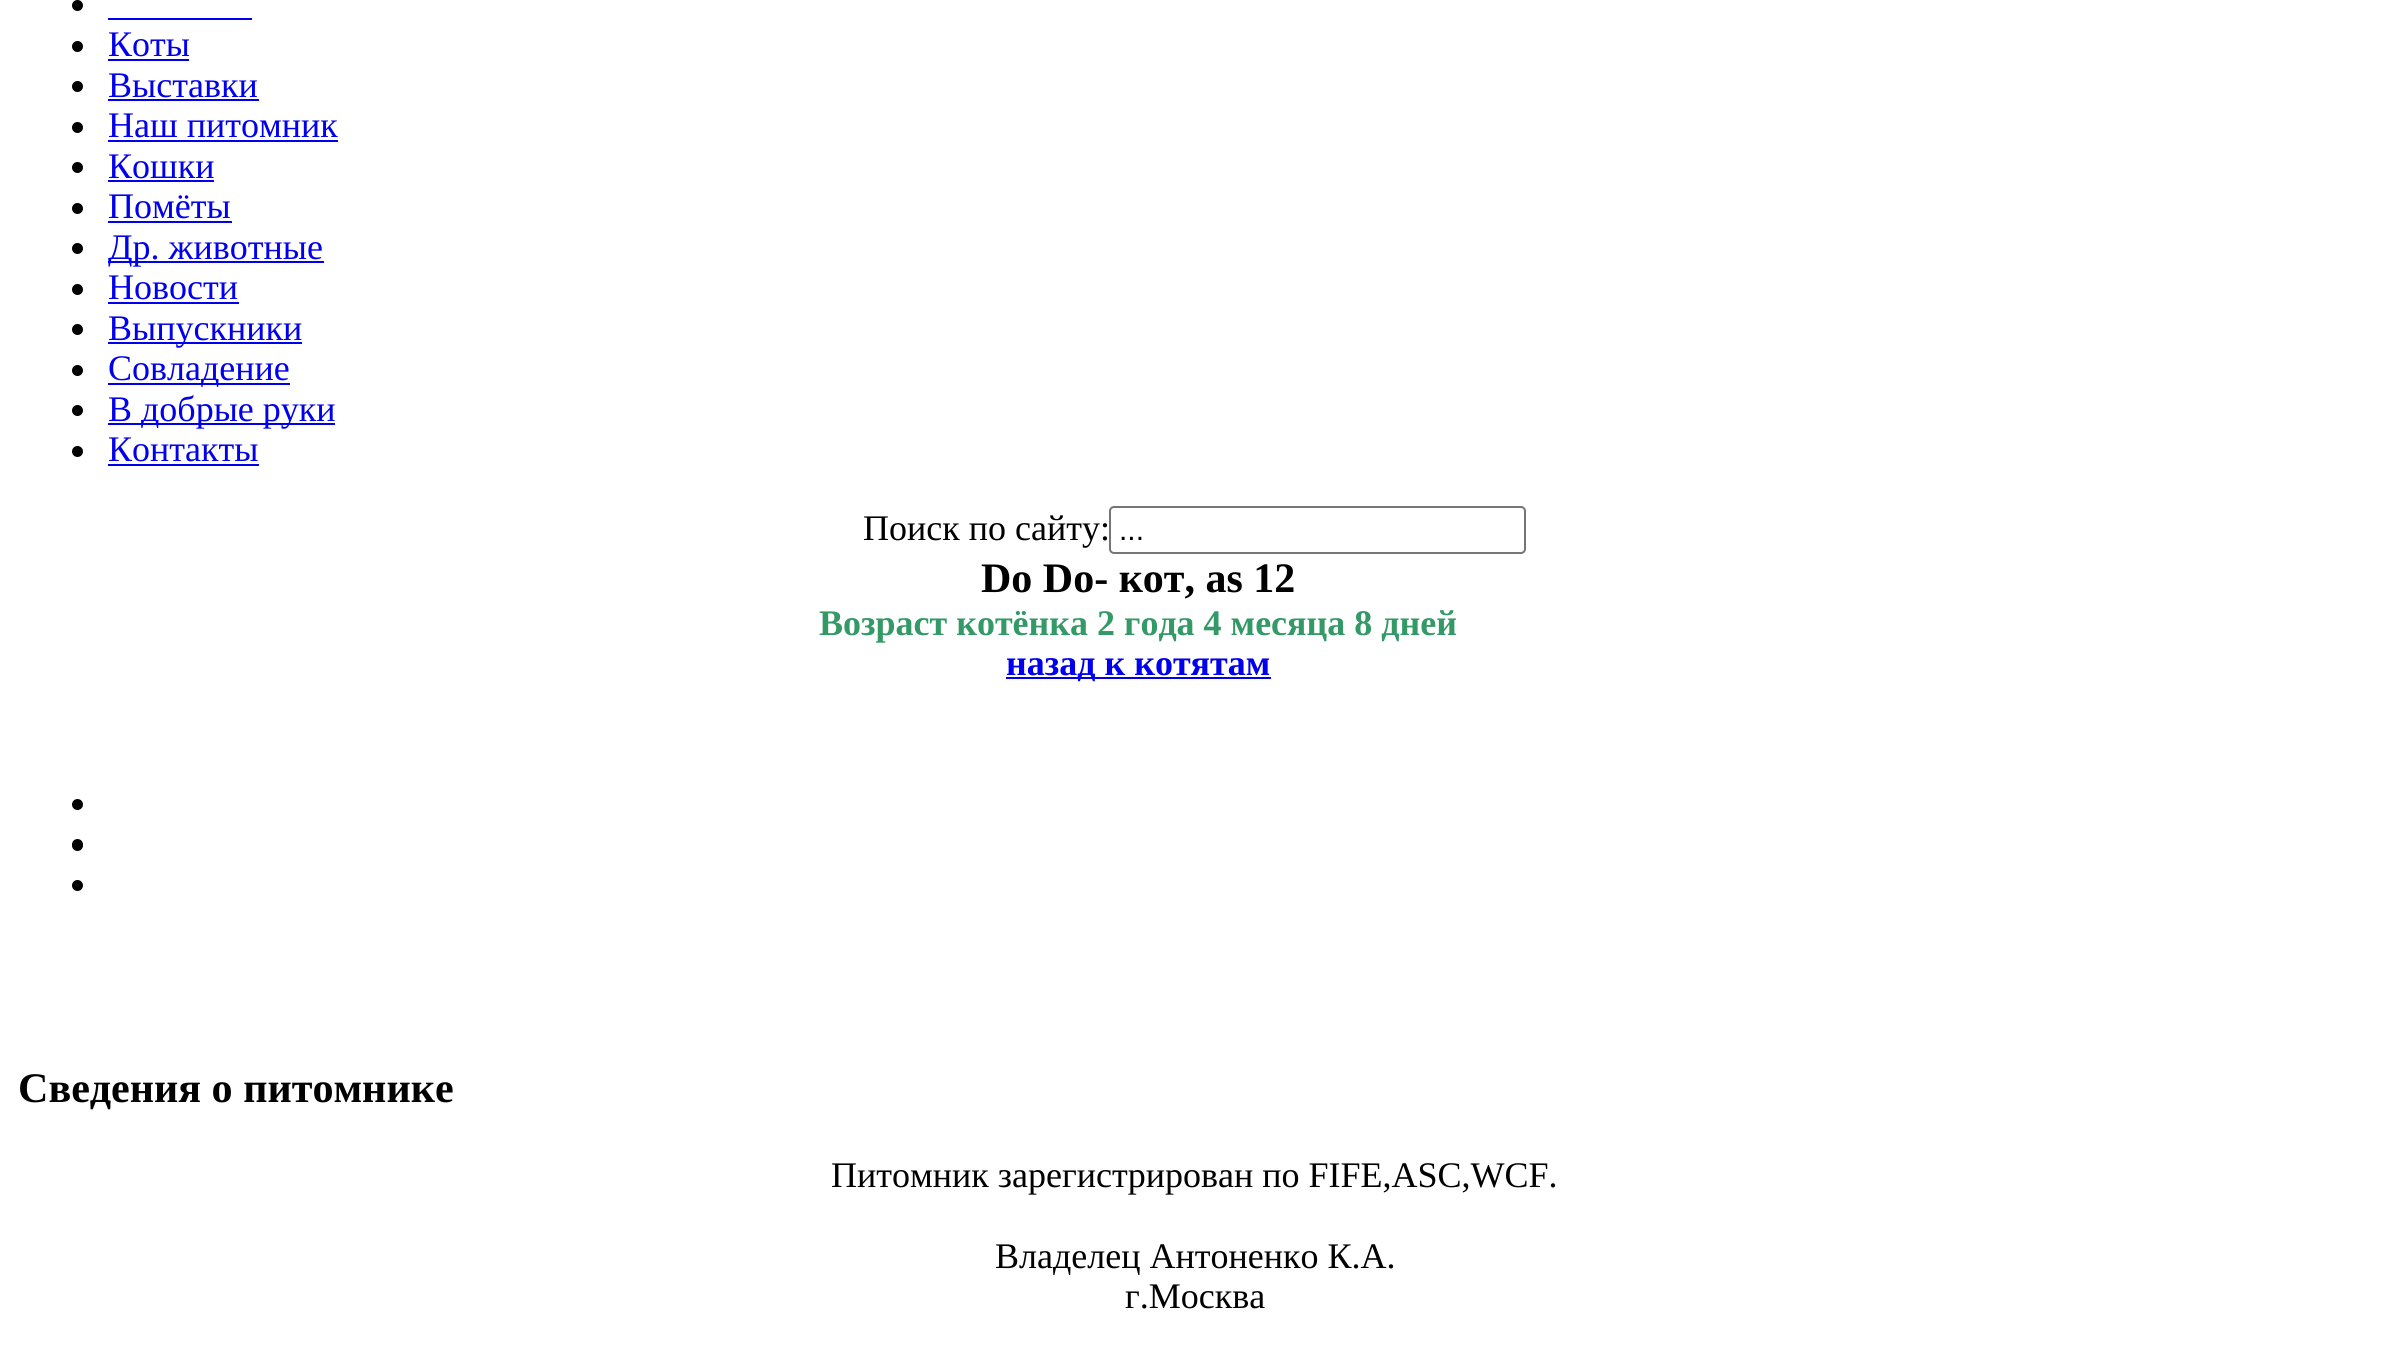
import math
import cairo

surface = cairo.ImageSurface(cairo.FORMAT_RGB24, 2389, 1354)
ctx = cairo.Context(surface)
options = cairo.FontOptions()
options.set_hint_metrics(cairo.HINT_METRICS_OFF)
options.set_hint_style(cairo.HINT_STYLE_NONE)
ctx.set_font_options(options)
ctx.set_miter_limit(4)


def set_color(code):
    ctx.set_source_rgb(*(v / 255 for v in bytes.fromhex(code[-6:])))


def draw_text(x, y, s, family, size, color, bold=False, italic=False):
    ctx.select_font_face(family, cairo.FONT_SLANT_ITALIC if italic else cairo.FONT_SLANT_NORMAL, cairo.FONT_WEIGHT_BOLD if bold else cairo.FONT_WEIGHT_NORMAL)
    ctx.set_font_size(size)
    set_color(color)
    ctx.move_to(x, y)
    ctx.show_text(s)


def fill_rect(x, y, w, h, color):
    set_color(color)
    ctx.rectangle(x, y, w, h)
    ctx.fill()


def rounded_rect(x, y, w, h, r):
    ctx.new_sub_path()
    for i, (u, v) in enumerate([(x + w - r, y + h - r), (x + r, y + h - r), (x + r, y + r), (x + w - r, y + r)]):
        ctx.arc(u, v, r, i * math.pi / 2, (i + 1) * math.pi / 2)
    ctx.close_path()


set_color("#ffffff")
ctx.paint()
set_color("#000000")
ctx.arc(77.5, 5.5, 5.5, 0, 2 * math.pi)
ctx.fill()
fill_rect(108, 18, 144, 2, "#0000ee")
set_color("#000000")
ctx.arc(77.5, 46.5, 5.5, 0, 2 * math.pi)
ctx.fill()
draw_text(108, 56, "Коты", "Liberation Serif", 36, "#0000ee")
fill_rect(108, 59, 81, 2, "#0000ee")
set_color("#000000")
ctx.new_path()
ctx.arc(77.5, 86.5, 5.5, 0, 2 * math.pi)
ctx.fill()
draw_text(108, 97, "Выставки", "Liberation Serif", 36, "#0000ee")
fill_rect(108, 99, 151, 2, "#0000ee")
set_color("#000000")
ctx.new_path()
ctx.arc(77.5, 127.5, 5.5, 0, 2 * math.pi)
ctx.fill()
draw_text(108, 137, "Наш питомник", "Liberation Serif", 36, "#0000ee")
fill_rect(108, 140, 230, 2, "#0000ee")
set_color("#000000")
ctx.new_path()
ctx.arc(77.5, 167.5, 5.5, 0, 2 * math.pi)
ctx.fill()
draw_text(108, 178, "Кошки", "Liberation Serif", 36, "#0000ee")
fill_rect(108, 180, 106, 2, "#0000ee")
set_color("#000000")
ctx.new_path()
ctx.arc(77.5, 208.5, 5.5, 0, 2 * math.pi)
ctx.fill()
draw_text(108, 218, "Помёты", "Liberation Serif", 36, "#0000ee")
fill_rect(108, 221, 124, 2, "#0000ee")
set_color("#000000")
ctx.new_path()
ctx.arc(77.5, 248.5, 5.5, 0, 2 * math.pi)
ctx.fill()
fill_rect(108, 261, 216, 2, "#0000ee")
draw_text(108, 259, "Др. животные", "Liberation Serif", 36, "#0000ee")
set_color("#000000")
ctx.new_path()
ctx.arc(77.5, 289.5, 5.5, 0, 2 * math.pi)
ctx.fill()
draw_text(108, 299, "Новости", "Liberation Serif", 36, "#0000ee")
fill_rect(108, 302, 131, 2, "#0000ee")
set_color("#000000")
ctx.new_path()
ctx.arc(77.5, 329.5, 5.5, 0, 2 * math.pi)
ctx.fill()
fill_rect(108, 342, 194, 2, "#0000ee")
draw_text(108, 340, "Выпускники", "Liberation Serif", 36, "#0000ee")
set_color("#000000")
ctx.new_path()
ctx.arc(77.5, 370.5, 5.5, 0, 2 * math.pi)
ctx.fill()
fill_rect(108, 383, 182, 2, "#0000ee")
draw_text(108, 380, "Совладение", "Liberation Serif", 36, "#0000ee")
set_color("#000000")
ctx.new_path()
ctx.arc(77.5, 410.5, 5.5, 0, 2 * math.pi)
ctx.fill()
fill_rect(108, 423, 227, 2, "#0000ee")
draw_text(108, 421, "В добрые руки", "Liberation Serif", 36, "#0000ee")
set_color("#000000")
ctx.new_path()
ctx.arc(77.5, 451.5, 5.5, 0, 2 * math.pi)
ctx.fill()
draw_text(108, 461, "Контакты", "Liberation Serif", 36, "#0000ee")
fill_rect(108, 464, 151, 2, "#0000ee")
draw_text(863, 540, "Поиск по сайту:", "Liberation Serif", 36, "#000000")
rounded_rect(1110, 507, 415, 46, 4)
set_color("#767676")
ctx.stroke()
draw_text(1119, 540, "...", "Liberation Sans", 30, "#000000")
draw_text(981, 592, "Do Do- кот, as 12", "Liberation Serif", 42, "#000000", bold=True)
draw_text(819, 635, "Возраст котёнка 2 года 4 месяца 8 дней", "Liberation Serif", 36, "#339966", bold=True)
fill_rect(1006, 677, 265, 2, "#0000ee")
draw_text(1006, 675, "назад к котятам", "Liberation Serif", 36, "#0000ee", bold=True)
set_color("#000000")
ctx.new_path()
ctx.arc(77.5, 804.5, 5.5, 0, 2 * math.pi)
ctx.fill()
rounded_rect(72, 839, 11, 12, 5.5)
ctx.fill()
ctx.arc(77.5, 885.5, 5.5, 0, 2 * math.pi)
ctx.fill()
draw_text(18, 1102, "Сведения о питомнике", "Liberation Serif", 42.1, "#000000", bold=True)
draw_text(831, 1187, "Питомник зарегистрирован по FIFE,ASC,WCF.", "Liberation Serif", 36, "#000000")
draw_text(995, 1268, "Владелец Антоненко К.А.", "Liberation Serif", 36, "#000000")
draw_text(1125, 1308, "г.Москва", "Liberation Serif", 36, "#000000")
surface.write_to_png("output.png")
